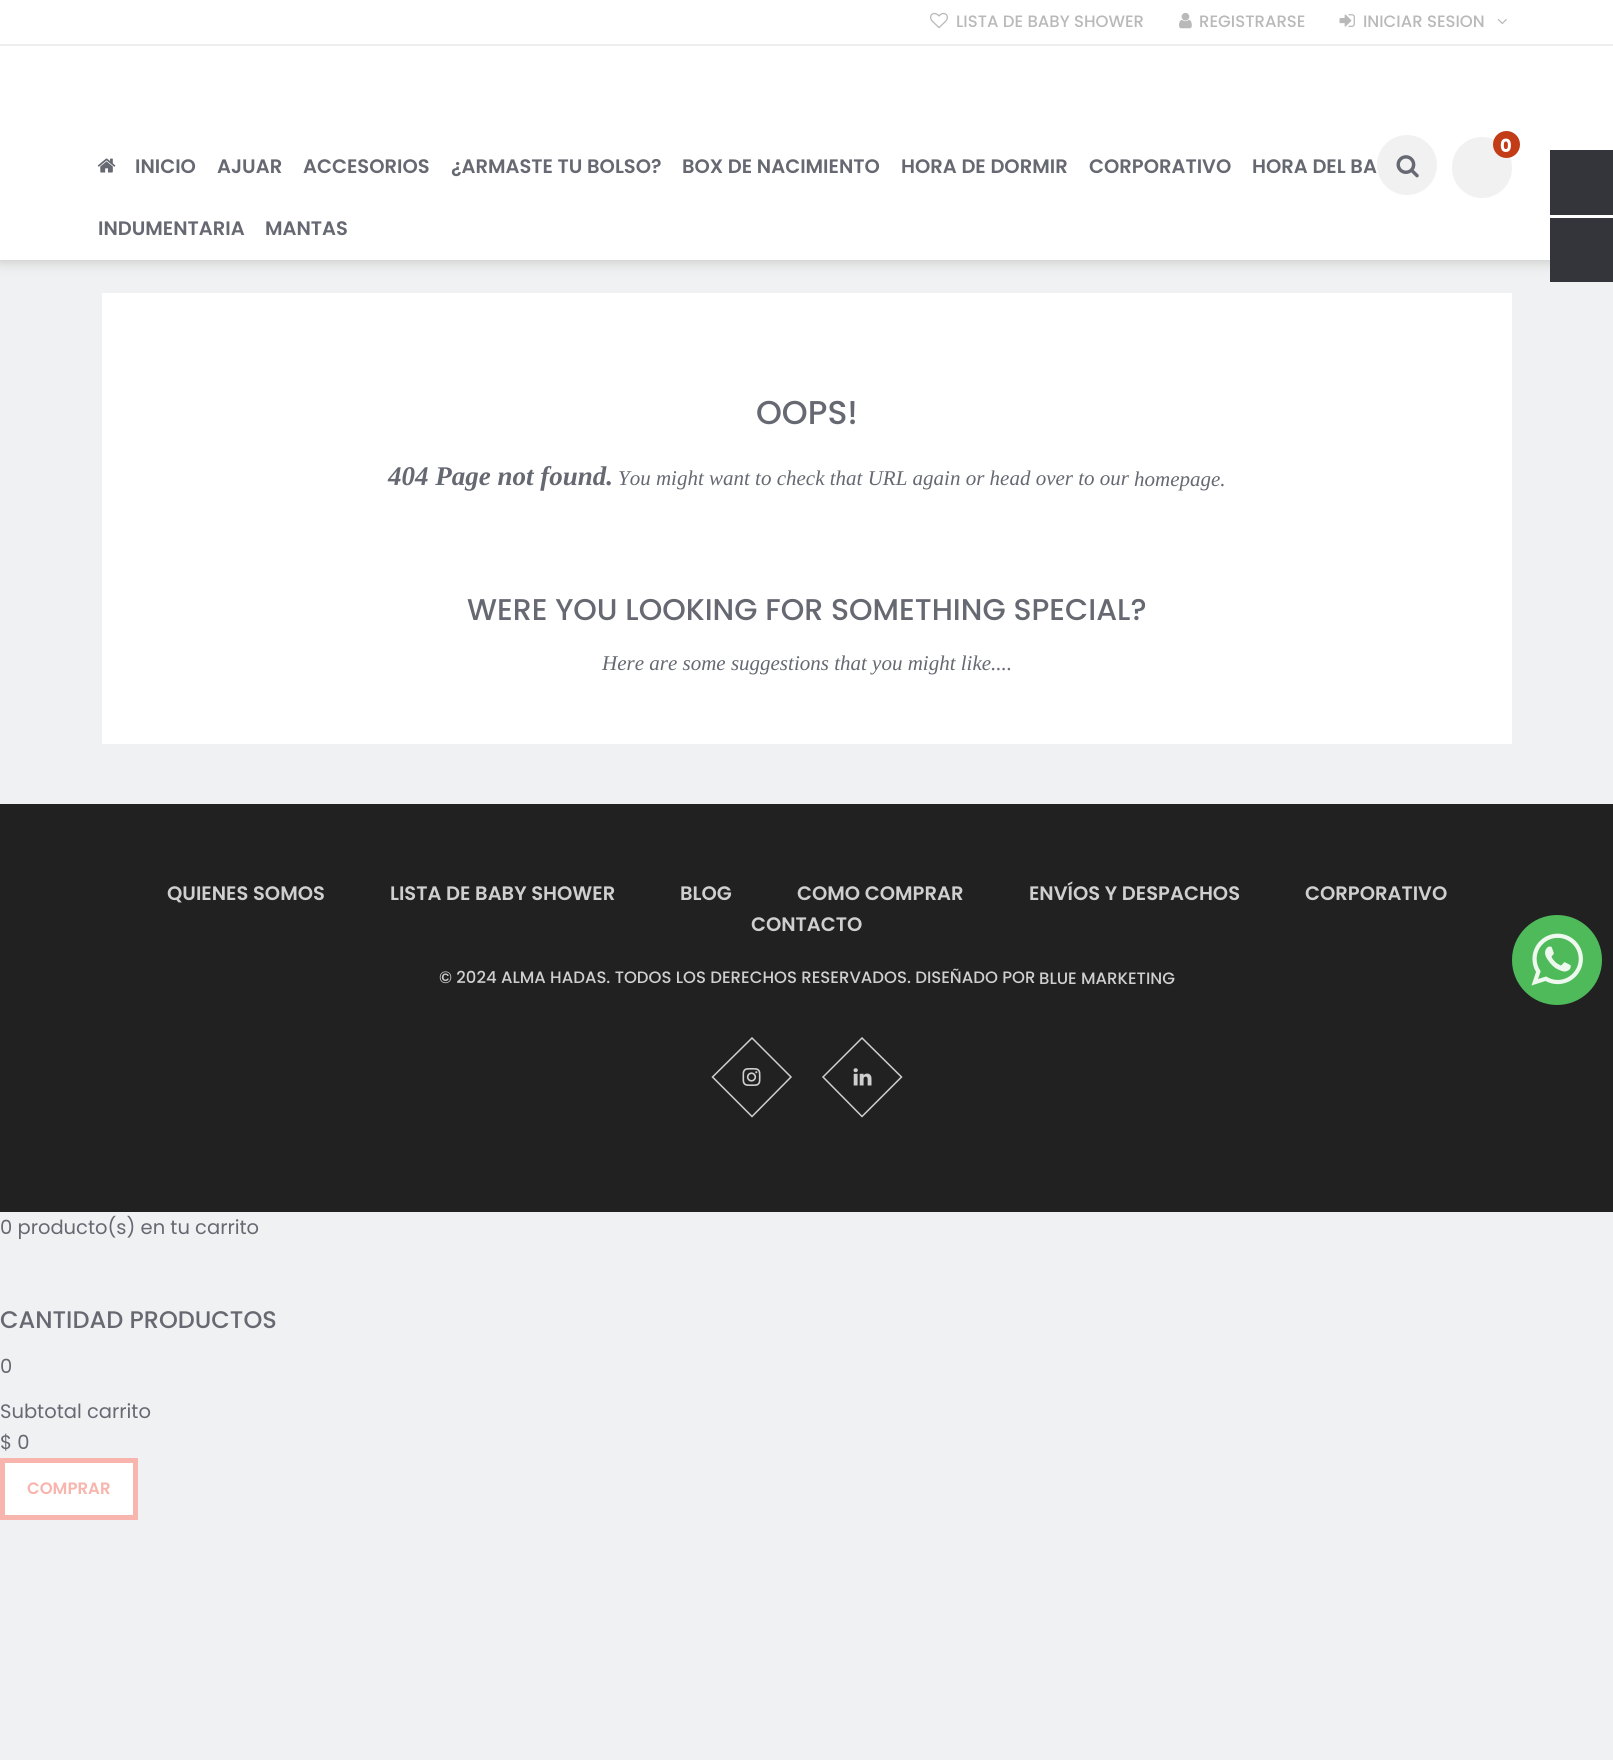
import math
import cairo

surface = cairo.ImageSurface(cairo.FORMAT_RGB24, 1613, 1760)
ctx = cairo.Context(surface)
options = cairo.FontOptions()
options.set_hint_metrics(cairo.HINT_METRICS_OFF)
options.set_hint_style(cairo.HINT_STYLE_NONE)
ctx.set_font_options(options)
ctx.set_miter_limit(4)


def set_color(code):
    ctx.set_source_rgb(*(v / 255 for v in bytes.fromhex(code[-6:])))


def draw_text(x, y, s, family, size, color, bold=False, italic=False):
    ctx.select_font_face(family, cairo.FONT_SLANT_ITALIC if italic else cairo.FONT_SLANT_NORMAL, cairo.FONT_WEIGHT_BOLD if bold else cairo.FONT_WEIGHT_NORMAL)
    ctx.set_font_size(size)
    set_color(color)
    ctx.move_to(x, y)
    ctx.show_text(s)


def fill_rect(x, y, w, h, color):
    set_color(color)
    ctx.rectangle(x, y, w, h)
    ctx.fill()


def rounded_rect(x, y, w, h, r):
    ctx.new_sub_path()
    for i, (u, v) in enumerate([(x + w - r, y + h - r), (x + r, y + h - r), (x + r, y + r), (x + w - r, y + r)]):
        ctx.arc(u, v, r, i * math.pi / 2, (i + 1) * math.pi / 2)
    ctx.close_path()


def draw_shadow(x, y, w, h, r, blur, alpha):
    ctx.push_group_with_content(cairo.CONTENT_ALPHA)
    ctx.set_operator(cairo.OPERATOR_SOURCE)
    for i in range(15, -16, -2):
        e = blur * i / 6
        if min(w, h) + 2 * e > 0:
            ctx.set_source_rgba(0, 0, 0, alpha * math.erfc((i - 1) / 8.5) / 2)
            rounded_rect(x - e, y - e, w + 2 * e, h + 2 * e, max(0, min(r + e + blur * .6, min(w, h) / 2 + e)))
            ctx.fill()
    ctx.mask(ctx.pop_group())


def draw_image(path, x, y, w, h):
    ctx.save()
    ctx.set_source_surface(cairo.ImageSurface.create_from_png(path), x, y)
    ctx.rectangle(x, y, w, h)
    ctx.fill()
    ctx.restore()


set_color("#f0f1f2")
ctx.paint()
set_color("#bdbdbd")
draw_shadow(0, 0, 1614, 260, 0, 7.5, 1)
fill_rect(0, 0, 1613, 260, "#ffffff")
fill_rect(0, 44, 1613, 2, "#eeeeee")
draw_image("assets/img1.png", 930, 12, 18, 17)
draw_text(956, 27, "LISTA DE BABY SHOWER", "Poppins Medium", 16.5, "#bab9ba")
draw_image("assets/img2.png", 1179, 12, 13, 17)
draw_text(1199, 27, "REGISTRARSE", "Poppins Medium", 16.5, "#bab9ba")
draw_image("assets/img3.png", 1339, 14, 16, 13)
draw_text(1363, 27, "INICIAR SESION", "Poppins Medium", 16.5, "#bab9ba")
draw_image("assets/img4.png", 1497, 19, 10, 6)
set_color("#f1f1f1")
ctx.arc(1407, 165, 30, 0, 2 * math.pi)
ctx.fill()
draw_image("assets/img5.png", 1396, 155, 23, 23)
rounded_rect(1452, 137, 60, 61, 30)
ctx.fill()
set_color("#c23c17")
ctx.arc(1506.5, 144.5, 13.5, 0, 2 * math.pi)
ctx.fill()
draw_text(1500, 152, "0", "Poppins", 18, "#ffffff", bold=True)
draw_image("assets/img6.png", 97, 158, 19, 15)
draw_text(135, 173, "INICIO", "Poppins SemiBold", 19.5, "#666972")
draw_text(217, 173, "AJUAR", "Poppins SemiBold", 19.5, "#666972")
draw_text(303, 173, "ACCESORIOS", "Poppins SemiBold", 19.5, "#666972")
draw_text(451, 173, "¿ARMASTE TU BOLSO?", "Poppins SemiBold", 19.5, "#666972")
draw_text(682, 173, "BOX DE NACIMIENTO", "Poppins SemiBold", 19.5, "#666972")
draw_text(901, 173, "HORA DE DORMIR", "Poppins SemiBold", 19.5, "#666972")
draw_text(1089, 173, "CORPORATIVO", "Poppins SemiBold", 19.5, "#666972")
draw_text(1252, 173, "HORA DEL BA", "Poppins SemiBold", 19.5, "#666972")
draw_text(98, 235, "INDUMENTARIA", "Poppins SemiBold", 19.5, "#666972")
draw_text(265, 235, "MANTAS", "Poppins SemiBold", 19.5, "#666972")
fill_rect(102, 293, 1410, 451, "#ffffff")
draw_text(756, 424, "OOPS!", "Poppins Medium", 33, "#666972")
draw_text(388, 485, "404 Page not found.", "Liberation Serif", 27, "#666972", bold=True, italic=True)
draw_text(618, 485, "You might want to check that URL again or head over to our", "Liberation Serif", 21, "#666972", italic=True)
draw_text(1134, 486, "homepage.", "Liberation Serif", 21, "#666972", italic=True)
draw_text(467, 620, "WERE YOU LOOKING FOR SOMETHING SPECIAL?", "Poppins Medium", 30, "#666972")
draw_text(602, 670, "Here are some suggestions that you might like....", "Liberation Serif", 21, "#666972", italic=True)
fill_rect(0, 804, 1613, 408, "#212121")
draw_text(167, 900, "QUIENES SOMOS", "Poppins SemiBold", 19.5, "#cfcfcf")
draw_text(390, 900, "LISTA DE BABY SHOWER", "Poppins SemiBold", 19.5, "#cfcfcf")
draw_text(680, 900, "BLOG", "Poppins SemiBold", 19.5, "#cfcfcf")
draw_text(797, 900, "COMO COMPRAR", "Poppins SemiBold", 19.5, "#cfcfcf")
draw_text(1029, 900, "ENVÍOS Y DESPACHOS", "Poppins SemiBold", 19.5, "#cfcfcf")
draw_text(1305, 900, "CORPORATIVO", "Poppins SemiBold", 19.5, "#cfcfcf")
draw_text(751, 931, "CONTACTO", "Poppins SemiBold", 19.5, "#cfcfcf")
draw_text(439, 983, "© 2024 ALMA HADAS. TODOS LOS DERECHOS RESERVADOS. DISEÑADO POR", "Poppins Medium", 16.5, "#cfcfcf")
draw_text(1039, 984, "BLUE MARKETING", "Poppins Medium", 16.5, "#cfcfcf")
draw_image("assets/img7.png", 742, 1068, 19, 18)
ctx.new_path()
ctx.move_to(752, 1038)
ctx.line_to(791, 1077)
ctx.line_to(752, 1116.5)
ctx.line_to(712.5, 1077)
ctx.close_path()
ctx.set_line_width(1.5)
ctx.stroke()
draw_image("assets/img8.png", 853, 1068, 19, 18)
ctx.new_path()
ctx.move_to(862, 1038)
ctx.line_to(901.5, 1077)
ctx.line_to(862, 1116.5)
ctx.line_to(823, 1077)
ctx.close_path()
ctx.stroke()
draw_text(0, 1234, "0 producto(s) en tu carrito", "Poppins", 19.5, "#666972")
draw_text(0, 1328, "CANTIDAD PRODUCTOS", "Poppins Medium", 24, "#666972")
draw_text(0, 1373, "0", "Poppins", 19.5, "#666972")
draw_text(0, 1418, "Subtotal carrito", "Poppins", 19.5, "#666972")
draw_text(0, 1449, "$ 0", "Poppins", 19.5, "#666972")
set_color("#ffffff")
ctx.rectangle(2.5, 1460.5, 133, 57)
ctx.fill_preserve()
set_color("#f8b5ad")
ctx.set_line_width(5)
ctx.stroke()
draw_text(27, 1494, "COMPRAR", "Poppins SemiBold", 16.5, "#f8b5ad")
fill_rect(1550, 150, 63, 65, "#33353b")
fill_rect(1550, 218, 63, 64, "#33353b")
set_color("#4eba59")
ctx.new_path()
ctx.arc(1557, 960, 45, 0, 2 * math.pi)
ctx.fill()
draw_image("assets/img9.png", 1531, 933, 52, 53)
surface.write_to_png("output.png")
